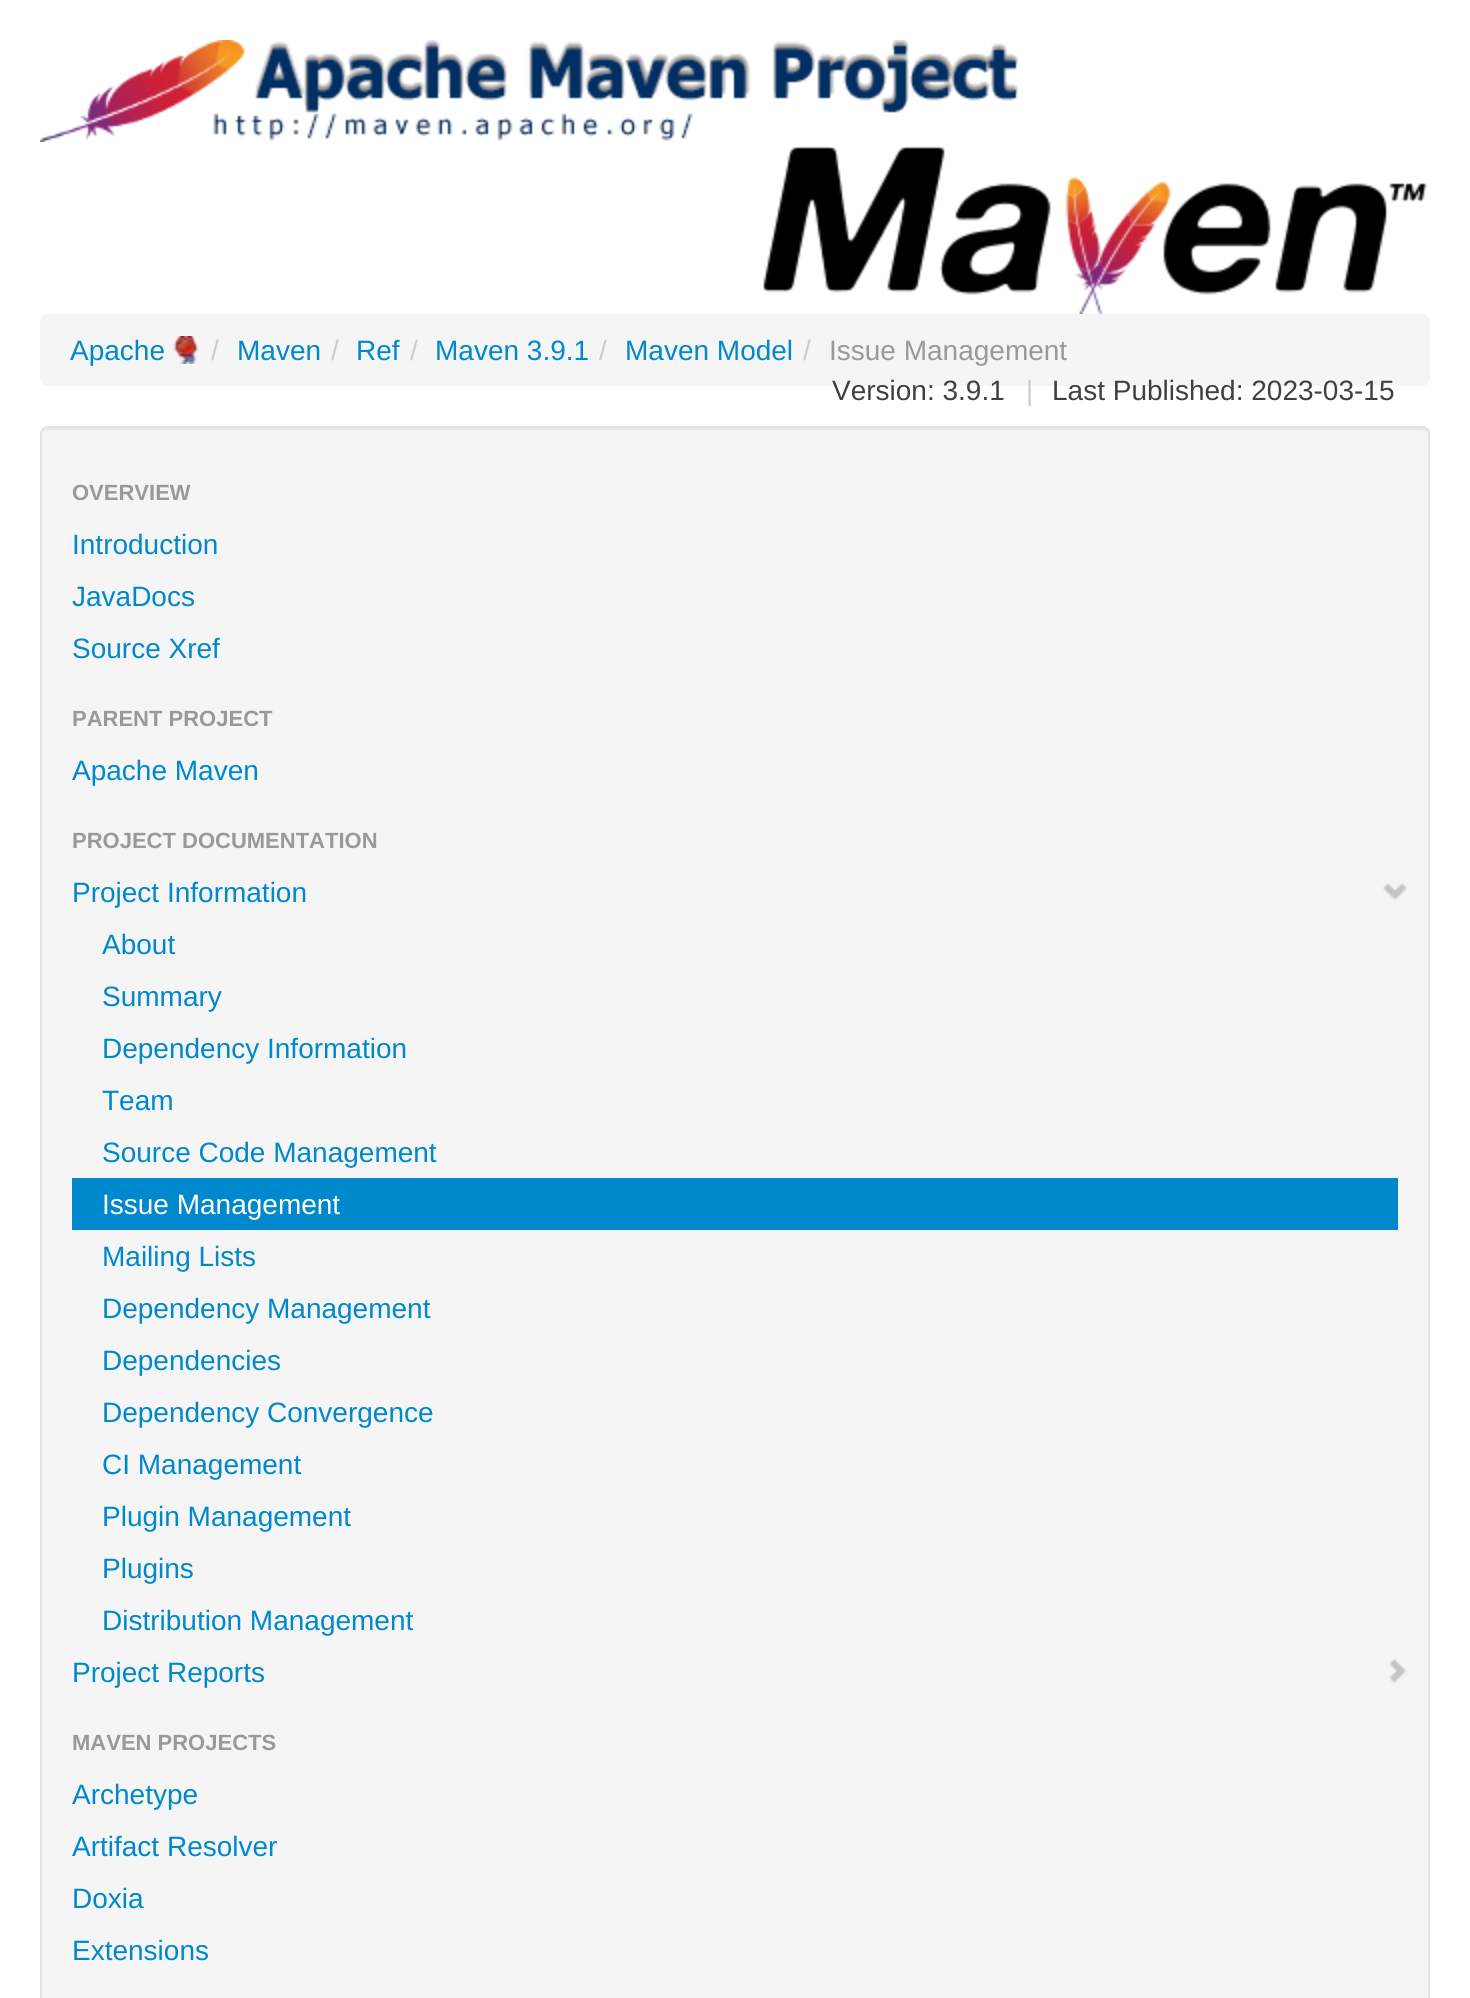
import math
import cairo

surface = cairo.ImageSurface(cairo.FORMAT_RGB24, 1470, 1998)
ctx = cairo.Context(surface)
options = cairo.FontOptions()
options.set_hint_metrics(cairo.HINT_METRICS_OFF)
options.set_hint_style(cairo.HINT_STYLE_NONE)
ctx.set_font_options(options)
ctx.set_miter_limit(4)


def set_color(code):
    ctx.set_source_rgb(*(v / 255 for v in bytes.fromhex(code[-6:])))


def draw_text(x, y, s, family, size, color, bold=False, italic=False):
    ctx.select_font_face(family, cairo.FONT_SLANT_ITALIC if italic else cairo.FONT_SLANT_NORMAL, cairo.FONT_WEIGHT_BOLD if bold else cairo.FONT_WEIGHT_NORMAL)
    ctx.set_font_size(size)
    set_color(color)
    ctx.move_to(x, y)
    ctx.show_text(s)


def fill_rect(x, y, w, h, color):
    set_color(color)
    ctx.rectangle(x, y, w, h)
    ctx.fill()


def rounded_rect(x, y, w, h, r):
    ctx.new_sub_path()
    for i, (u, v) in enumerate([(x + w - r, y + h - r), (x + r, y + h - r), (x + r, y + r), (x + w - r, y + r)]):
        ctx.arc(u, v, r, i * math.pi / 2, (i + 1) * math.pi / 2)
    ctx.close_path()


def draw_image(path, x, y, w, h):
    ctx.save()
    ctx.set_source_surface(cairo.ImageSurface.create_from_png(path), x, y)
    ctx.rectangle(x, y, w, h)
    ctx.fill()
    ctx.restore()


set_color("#ffffff")
ctx.paint()
draw_image("assets/img1.png", 40, 40, 978, 102)
draw_image("assets/img2.png", 763, 146, 664, 168)
set_color("#f5f5f5")
rounded_rect(40, 314, 1390, 72, 8)
ctx.fill()
draw_text(70, 360, "Apache", "Liberation Sans", 28, "#0088cc")
draw_image("assets/img3.png", 173, 336, 26, 28)
draw_text(211, 360, "/", "Liberation Sans", 28, "#cccccc")
draw_text(237, 360, "Maven", "Liberation Sans", 28, "#0088cc")
draw_text(331, 360, "/", "Liberation Sans", 28, "#cccccc")
draw_text(356, 360, "Ref", "Liberation Sans", 28, "#0088cc")
draw_text(410, 360, "/", "Liberation Sans", 28, "#cccccc")
draw_text(435, 360, "Maven 3.9.1", "Liberation Sans", 28, "#0088cc")
draw_text(599, 360, "/", "Liberation Sans", 28, "#cccccc")
draw_text(625, 360, "Maven Model", "Liberation Sans", 28, "#0088cc")
draw_text(803, 360, "/", "Liberation Sans", 28, "#cccccc")
draw_text(829, 360, "Issue Management", "Liberation Sans", 28, "#999999")
draw_text(832, 400, "Version: 3.9.1", "Liberation Sans", 28, "#404040")
draw_text(1026, 400, "|", "Liberation Sans", 28, "#cccccc")
draw_text(1052, 400, "Last Published: 2023-03-15", "Liberation Sans", 28, "#404040")
set_color("#f5f5f5")
rounded_rect(40, 426, 1390, 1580, 8)
ctx.fill()
set_color("#e9e9e9")
ctx.new_path()
ctx.move_to(48, 430)
ctx.line_to(1422, 430)
ctx.curve_to(1425, 430, 1428, 433, 1428, 436)
ctx.line_to(1428, 434)
ctx.curve_to(1428, 431, 1425, 428, 1422, 428)
ctx.line_to(48, 428)
ctx.curve_to(45, 428, 42, 431, 42, 434)
ctx.line_to(42, 436)
ctx.curve_to(42, 433, 45, 430, 48, 430)
ctx.close_path()
ctx.fill()
rounded_rect(41, 427, 1388, 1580, 7)
set_color("#e3e3e3")
ctx.stroke()
draw_text(72, 500, "OVERVIEW", "Liberation Sans", 22, "#999999", bold=True)
draw_text(72, 554, "Introduction", "Liberation Sans", 28, "#0088cc")
draw_text(72, 606, "JavaDocs", "Liberation Sans", 28, "#0088cc")
draw_text(72, 658, "Source Xref", "Liberation Sans", 28, "#0088cc")
draw_text(72, 726, "PARENT PROJECT", "Liberation Sans", 22, "#999999", bold=True)
draw_text(72, 780, "Apache Maven", "Liberation Sans", 28, "#0088cc")
draw_text(72, 848, "PROJECT DOCUMENTATION", "Liberation Sans", 22, "#999999", bold=True)
draw_text(72, 902, "Project Information", "Liberation Sans", 28, "#0088cc")
draw_image("assets/img4.png", 1383, 883, 24, 18)
draw_text(102, 954, "About", "Liberation Sans", 28, "#0088cc")
draw_text(102, 1006, "Summary", "Liberation Sans", 28, "#0088cc")
draw_text(102, 1058, "Dependency Information", "Liberation Sans", 28, "#0088cc")
draw_text(102, 1110, "Team", "Liberation Sans", 28, "#0088cc")
draw_text(102, 1162, "Source Code Management", "Liberation Sans", 28, "#0088cc")
fill_rect(72, 1178, 1326, 52, "#0088cc")
draw_text(102, 1214, "Issue Management", "Liberation Sans", 28, "#ffffff")
draw_text(102, 1266, "Mailing Lists", "Liberation Sans", 28, "#0088cc")
draw_text(102, 1318, "Dependency Management", "Liberation Sans", 28, "#0088cc")
draw_text(102, 1370, "Dependencies", "Liberation Sans", 28, "#0088cc")
draw_text(102, 1422, "Dependency Convergence", "Liberation Sans", 28, "#0088cc")
draw_text(102, 1474, "CI Management", "Liberation Sans", 28, "#0088cc")
draw_text(102, 1526, "Plugin Management", "Liberation Sans", 28, "#0088cc")
draw_text(102, 1578, "Plugins", "Liberation Sans", 28, "#0088cc")
draw_text(102, 1630, "Distribution Management", "Liberation Sans", 28, "#0088cc")
draw_text(72, 1682, "Project Reports", "Liberation Sans", 28, "#0088cc")
draw_image("assets/img5.png", 1389, 1659, 18, 24)
draw_text(72, 1750, "MAVEN PROJECTS", "Liberation Sans", 22, "#999999", bold=True)
draw_text(72, 1804, "Archetype", "Liberation Sans", 28, "#0088cc")
draw_text(72, 1856, "Artifact Resolver", "Liberation Sans", 28, "#0088cc")
draw_text(72, 1908, "Doxia", "Liberation Sans", 28, "#0088cc")
draw_text(72, 1960, "Extensions", "Liberation Sans", 28, "#0088cc")
surface.write_to_png("output.png")
